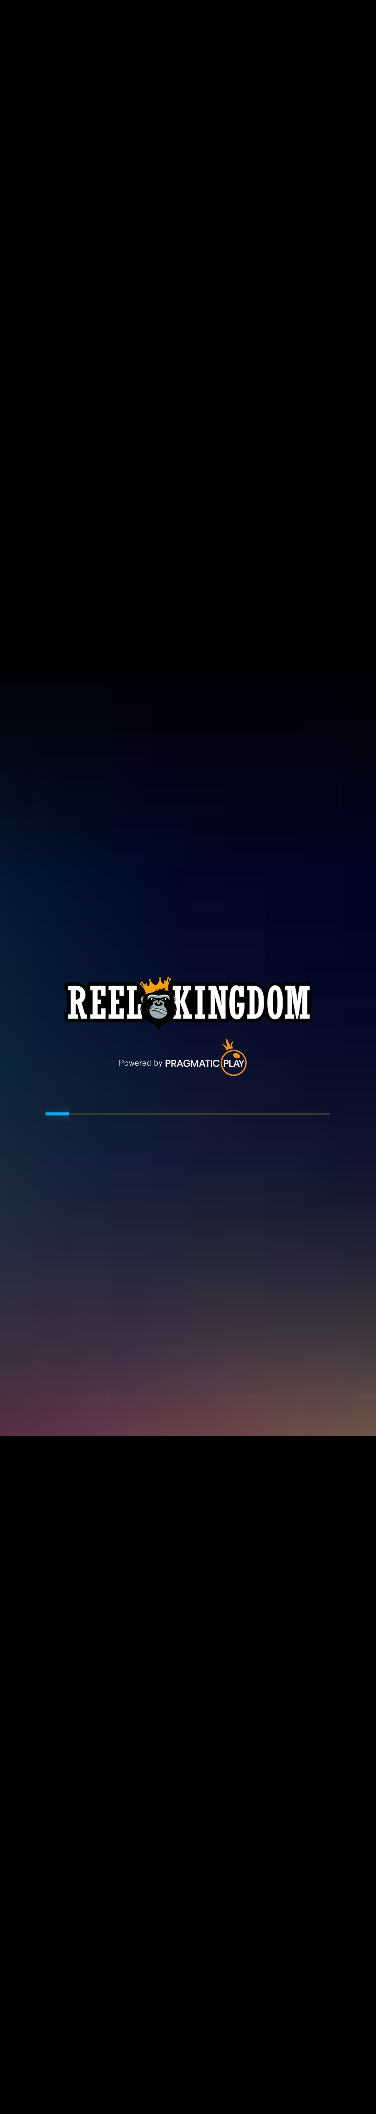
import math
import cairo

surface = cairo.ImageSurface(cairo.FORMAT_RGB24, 376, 2114)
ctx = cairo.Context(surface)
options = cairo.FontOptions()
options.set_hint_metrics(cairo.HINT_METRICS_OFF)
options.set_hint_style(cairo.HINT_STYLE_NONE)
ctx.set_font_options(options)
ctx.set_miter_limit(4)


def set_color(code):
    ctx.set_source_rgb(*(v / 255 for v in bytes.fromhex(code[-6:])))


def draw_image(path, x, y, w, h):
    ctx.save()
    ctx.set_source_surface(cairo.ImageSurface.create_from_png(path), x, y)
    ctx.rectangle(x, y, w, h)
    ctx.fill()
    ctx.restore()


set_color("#000000")
ctx.paint()
draw_image("assets/img1.png", 0, 678, 376, 758)
surface.write_to_png("output.png")
